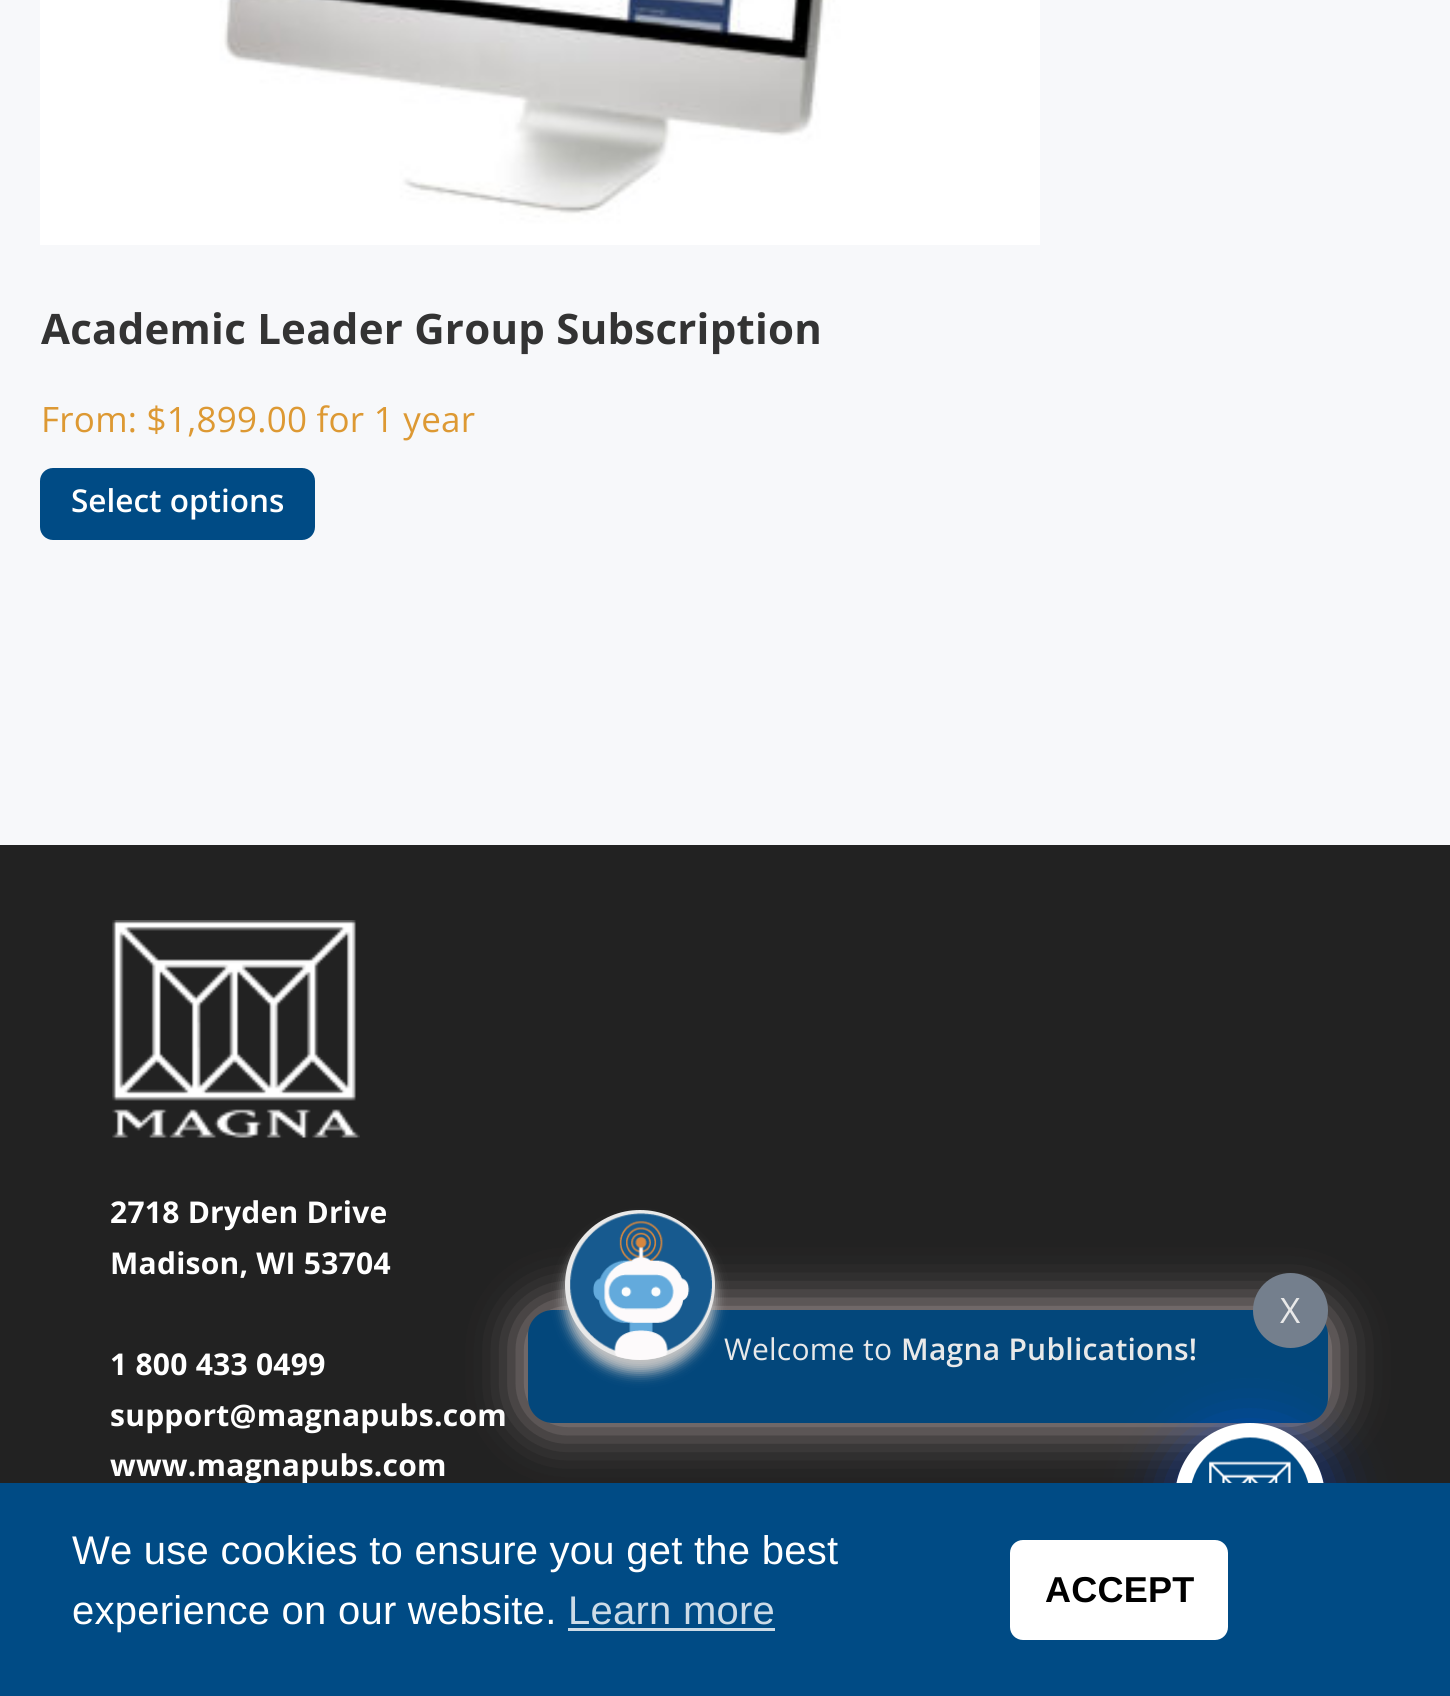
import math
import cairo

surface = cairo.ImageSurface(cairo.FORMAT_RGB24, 1450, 1696)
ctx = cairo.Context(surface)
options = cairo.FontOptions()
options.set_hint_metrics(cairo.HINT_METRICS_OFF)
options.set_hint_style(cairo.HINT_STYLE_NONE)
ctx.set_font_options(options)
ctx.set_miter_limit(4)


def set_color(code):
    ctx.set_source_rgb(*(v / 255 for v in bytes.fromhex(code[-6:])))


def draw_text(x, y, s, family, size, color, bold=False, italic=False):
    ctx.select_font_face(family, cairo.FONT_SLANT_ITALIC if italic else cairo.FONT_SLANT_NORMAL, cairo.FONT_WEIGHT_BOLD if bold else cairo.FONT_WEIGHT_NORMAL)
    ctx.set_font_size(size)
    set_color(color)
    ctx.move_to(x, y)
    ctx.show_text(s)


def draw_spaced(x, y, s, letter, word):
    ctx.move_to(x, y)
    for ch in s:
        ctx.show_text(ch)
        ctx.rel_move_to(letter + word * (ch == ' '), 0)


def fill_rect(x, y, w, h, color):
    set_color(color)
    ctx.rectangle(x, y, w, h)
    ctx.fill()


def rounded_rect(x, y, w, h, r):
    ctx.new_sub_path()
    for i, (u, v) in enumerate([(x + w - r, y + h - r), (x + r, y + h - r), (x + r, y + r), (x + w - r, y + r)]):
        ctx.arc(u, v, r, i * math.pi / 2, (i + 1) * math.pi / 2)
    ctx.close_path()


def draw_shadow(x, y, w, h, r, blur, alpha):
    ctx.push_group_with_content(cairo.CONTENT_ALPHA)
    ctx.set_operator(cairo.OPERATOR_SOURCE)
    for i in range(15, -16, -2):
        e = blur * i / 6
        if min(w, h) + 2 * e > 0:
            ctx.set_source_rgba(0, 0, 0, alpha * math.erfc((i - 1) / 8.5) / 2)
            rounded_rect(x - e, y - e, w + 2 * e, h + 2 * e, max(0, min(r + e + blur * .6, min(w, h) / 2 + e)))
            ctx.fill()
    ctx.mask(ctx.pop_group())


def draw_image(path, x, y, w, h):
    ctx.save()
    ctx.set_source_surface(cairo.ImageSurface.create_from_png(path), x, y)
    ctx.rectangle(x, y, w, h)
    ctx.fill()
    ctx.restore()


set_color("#f7f8fa")
ctx.paint()
draw_image("assets/img1.png", 40, 0, 1000, 245)
ctx.select_font_face("Open Sans", cairo.FONT_SLANT_NORMAL, cairo.FONT_WEIGHT_BOLD)
ctx.set_font_size(42)
set_color("#333333")
draw_spaced(41, 344, "Academic Leader Group Subscription", 0.25, 0)
ctx.select_font_face("Open Sans")
ctx.set_font_size(35)
set_color("#dd9933")
draw_spaced(41, 432, "From: $1,899.00 for 1 year", 0.25, 0)
set_color("#004b85")
rounded_rect(40, 468, 275, 72, 13)
ctx.fill()
draw_text(71, 512, "Select options", "Open Sans SemiBold", 31.5, "#ffffff")
fill_rect(0, 845, 1450, 638, "#222222")
draw_image("assets/img2.png", 112, 920, 248, 218)
ctx.select_font_face("Open Sans", cairo.FONT_SLANT_NORMAL, cairo.FONT_WEIGHT_BOLD)
ctx.set_font_size(30)
set_color("#ffffff")
draw_spaced(110, 1223, "2718 Dryden Drive", 0.25, 0)
draw_spaced(110, 1274, "Madison, WI 53704", 0.25, 0)
draw_spaced(110, 1375, "1 800 433 0499", 0.25, 0)
draw_spaced(110, 1426, "support@magnapubs.com", 0.25, 0)
draw_spaced(110, 1476, "www.magnapubs.com", 0.25, 0)
set_color("#cebdbd")
draw_shadow(528, 1310, 800, 113, 25, 25, 0.9)
set_color("#03477b")
rounded_rect(528, 1310, 800, 113, 25)
ctx.fill()
set_color("#747f8d")
ctx.arc(1290.5, 1310.5, 37.5, 0, 2 * math.pi)
ctx.fill()
ctx.select_font_face("Open Sans")
ctx.set_font_size(35)
set_color("#e9e9e9")
draw_spaced(1280, 1323, "X", 0.25, 0)
set_color("#c3c3c3")
draw_shadow(565, 1223, 150, 150, 75, 6, 1)
set_color("#e9e9e9")
ctx.arc(640, 1285, 75, 0, 2 * math.pi)
ctx.fill()
draw_image("assets/img3.png", 570, 1213, 142, 147)
ctx.set_font_size(30)
draw_spaced(724, 1360, "Welcome to", 0.25, 0)
ctx.select_font_face("Open Sans SemiBold")
draw_spaced(901, 1360, "Magna Publications!", 0.25, 0)
set_color("#004dff")
draw_shadow(1175, 1433, 150, 150, 75, 30, 0.5)
set_color("#ffffff")
ctx.arc(1250, 1498, 75, 0, 2 * math.pi)
ctx.fill()
draw_image("assets/img4.png", 1191, 1437, 118, 46)
fill_rect(0, 1483, 1450, 213, "#004b85")
ctx.select_font_face("Liberation Sans")
ctx.set_font_size(40)
set_color("#ffffff")
draw_spaced(72, 1564, "We use cookies to ensure you get the best", 0.25, 0)
draw_spaced(72, 1624, "experience on our website.", 0.25, 0)
set_color("#ccdbe7")
draw_spaced(568, 1624, "Learn more", 0.25, 0)
fill_rect(568, 1628, 207, 3, "#ccdbe7")
set_color("#ffffff")
rounded_rect(1010, 1540, 218, 100, 13)
ctx.fill()
ctx.select_font_face("Liberation Sans", cairo.FONT_SLANT_NORMAL, cairo.FONT_WEIGHT_BOLD)
ctx.set_font_size(36)
set_color("#000000")
draw_spaced(1045, 1602, "ACCEPT", 0.25, 0)
surface.write_to_png("output.png")
